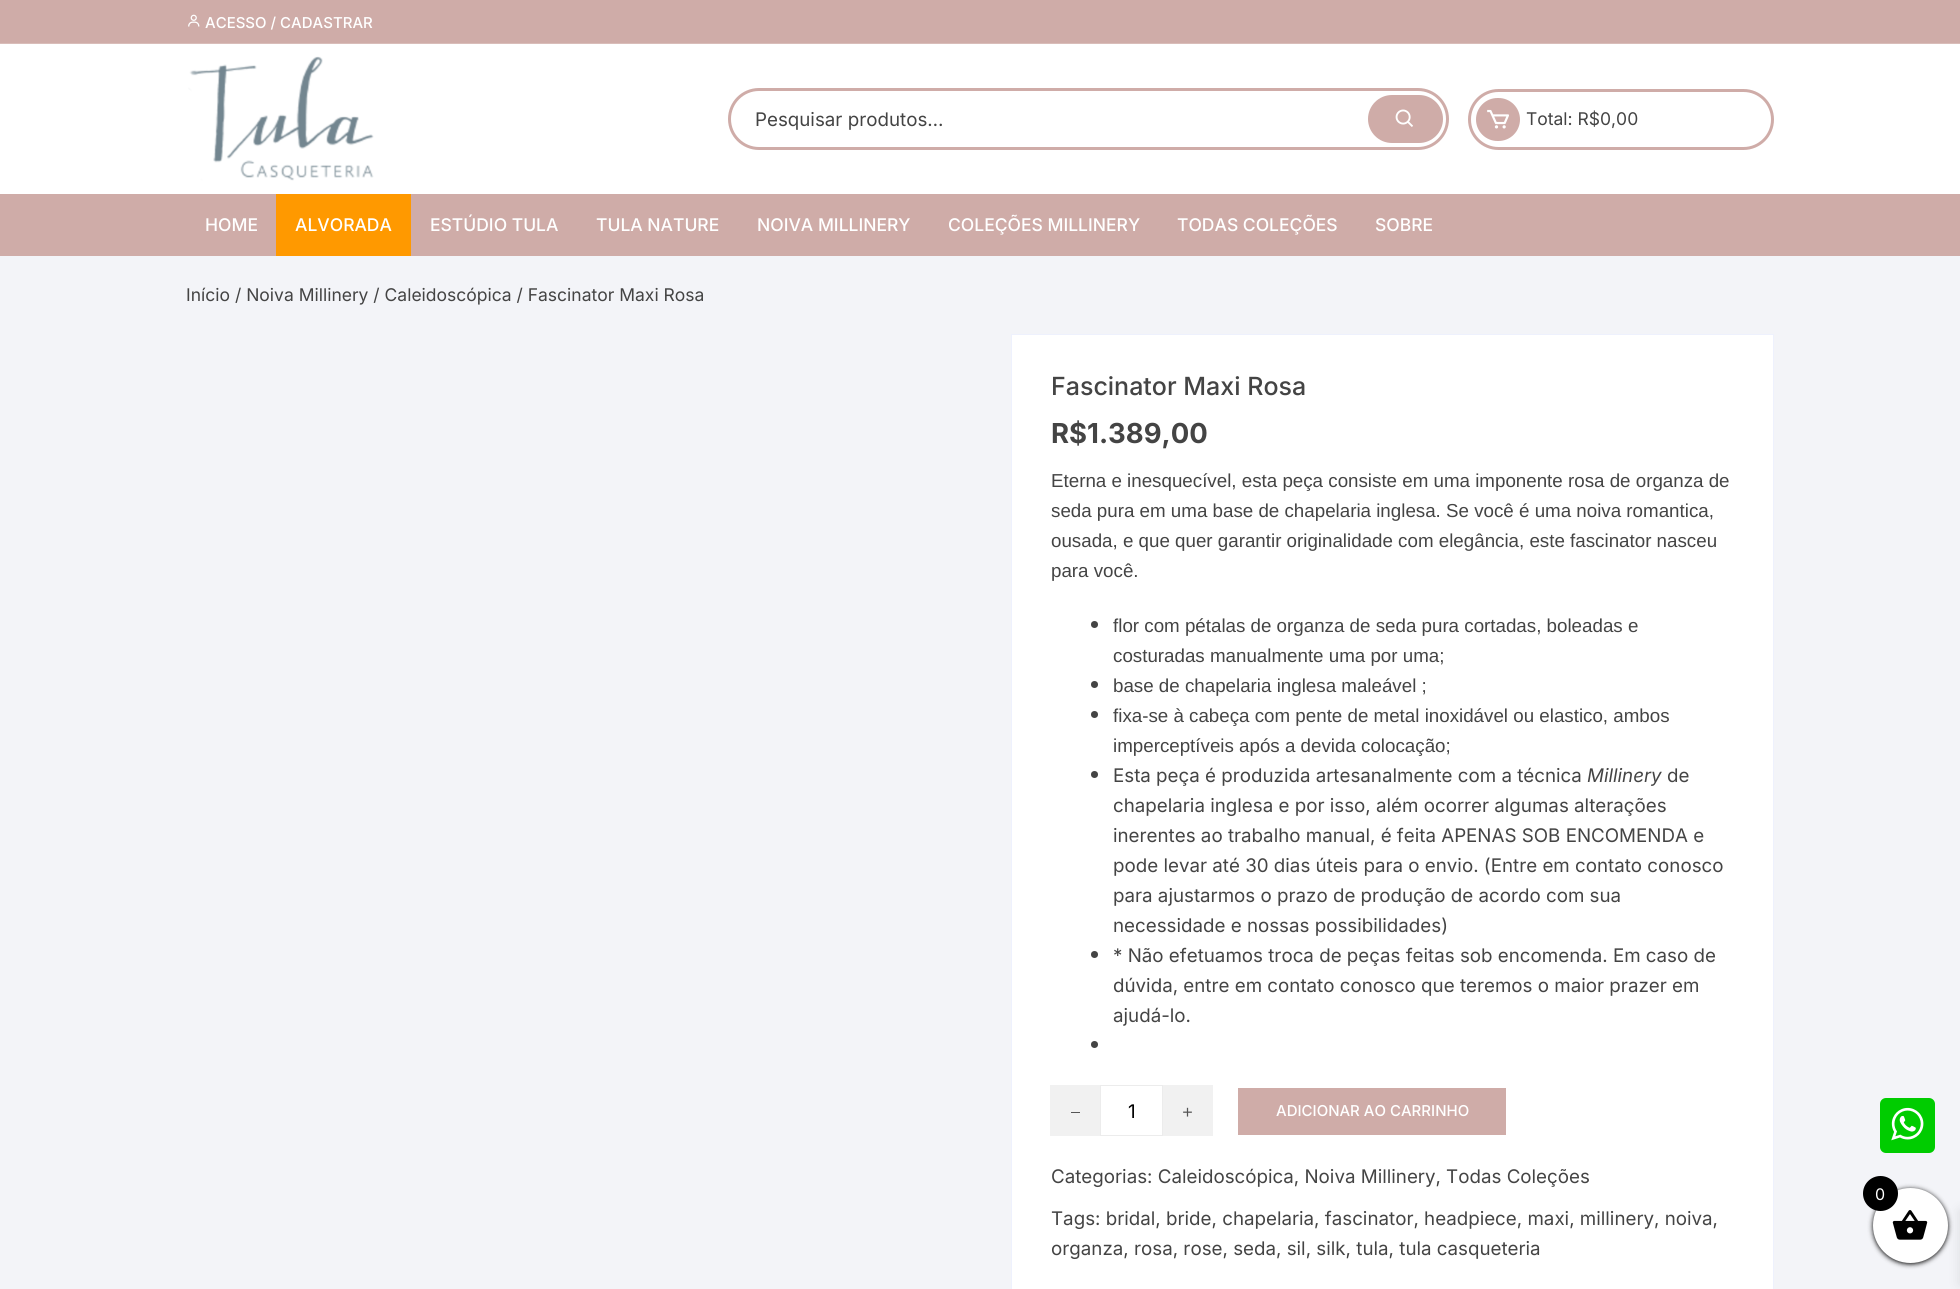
import math
import cairo

surface = cairo.ImageSurface(cairo.FORMAT_RGB24, 1960, 1289)
ctx = cairo.Context(surface)
options = cairo.FontOptions()
options.set_hint_metrics(cairo.HINT_METRICS_OFF)
options.set_hint_style(cairo.HINT_STYLE_NONE)
ctx.set_font_options(options)
ctx.set_miter_limit(4)


def set_color(code):
    ctx.set_source_rgb(*(v / 255 for v in bytes.fromhex(code[-6:])))


def draw_text(x, y, s, family, size, color, bold=False, italic=False):
    ctx.select_font_face(family, cairo.FONT_SLANT_ITALIC if italic else cairo.FONT_SLANT_NORMAL, cairo.FONT_WEIGHT_BOLD if bold else cairo.FONT_WEIGHT_NORMAL)
    ctx.set_font_size(size)
    set_color(color)
    ctx.move_to(x, y)
    ctx.show_text(s)


def fill_rect(x, y, w, h, color):
    set_color(color)
    ctx.rectangle(x, y, w, h)
    ctx.fill()


def rounded_rect(x, y, w, h, r):
    ctx.new_sub_path()
    for i, (u, v) in enumerate([(x + w - r, y + h - r), (x + r, y + h - r), (x + r, y + r), (x + w - r, y + r)]):
        ctx.arc(u, v, r, i * math.pi / 2, (i + 1) * math.pi / 2)
    ctx.close_path()


def draw_shadow(x, y, w, h, r, blur, alpha):
    ctx.push_group_with_content(cairo.CONTENT_ALPHA)
    ctx.set_operator(cairo.OPERATOR_SOURCE)
    for i in range(15, -16, -2):
        e = blur * i / 6
        if min(w, h) + 2 * e > 0:
            ctx.set_source_rgba(0, 0, 0, alpha * math.erfc((i - 1) / 8.5) / 2)
            rounded_rect(x - e, y - e, w + 2 * e, h + 2 * e, max(0, min(r + e + blur * .6, min(w, h) / 2 + e)))
            ctx.fill()
    ctx.mask(ctx.pop_group())


def draw_image(path, x, y, w, h):
    ctx.save()
    ctx.set_source_surface(cairo.ImageSurface.create_from_png(path), x, y)
    ctx.rectangle(x, y, w, h)
    ctx.fill()
    ctx.restore()


set_color("#f3f4f8")
ctx.paint()
fill_rect(0, 44, 1960, 150, "#ffffff")
fill_rect(0, 0, 1960, 43, "#cfaca8")
fill_rect(0, 43, 1960, 1, "#d9bdb9")
draw_image("assets/img1.png", 188, 14, 12, 13)
draw_text(205, 28, "ACESSO / CADASTRAR", "Inter Medium", 15, "#ffffff")
draw_image("assets/img2.png", 188, 56, 186, 125)
rounded_rect(729.5, 89.5, 718, 59, 29.5)
set_color("#cfaca8")
ctx.set_line_width(3)
ctx.stroke()
draw_text(755, 126, "Pesquisar produtos…", "Inter", 18.75, "#444444")
set_color("#cfaca8")
rounded_rect(1368, 95, 75, 48, 24)
ctx.fill()
draw_image("assets/img3.png", 1395, 109, 18, 18)
rounded_rect(1469.5, 90.5, 303, 58, 29)
ctx.stroke()
rounded_rect(1476, 98, 44, 43, 21.5)
ctx.fill()
draw_image("assets/img4.png", 1487, 109, 22, 20)
draw_text(1526, 125, "Total: R$0,00", "Inter", 17.5, "#444444")
fill_rect(0, 194, 1960, 62, "#cfaca8")
draw_text(205, 231, "HOME", "Inter Medium", 17.5, "#ffffff")
fill_rect(276, 194, 135, 62, "#ff9900")
draw_text(295, 231, "ALVORADA", "Inter Medium", 17.5, "#ffffff")
draw_text(430, 231, "ESTÚDIO TULA", "Inter Medium", 17.5, "#ffffff")
draw_text(596, 231, "TULA NATURE", "Inter Medium", 17.5, "#ffffff")
draw_text(757, 231, "NOIVA MILLINERY", "Inter Medium", 17.5, "#ffffff")
draw_text(948, 231, "COLEÇÕES MILLINERY", "Inter Medium", 17.5, "#ffffff")
draw_text(1177, 231, "TODAS COLEÇÕES", "Inter Medium", 17.5, "#ffffff")
draw_text(1375, 231, "SOBRE", "Inter Medium", 17.5, "#ffffff")
draw_text(186, 301, "Início / Noiva Millinery / Caleidoscópica / Fascinator Maxi Rosa", "Inter", 17.5, "#444444")
set_color("#ffffff")
ctx.rectangle(1011.5, 334.5, 762, 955)
ctx.fill_preserve()
set_color("#eef1fd")
ctx.set_line_width(1)
ctx.stroke()
draw_text(1051, 395, "Fascinator Maxi Rosa", "Inter Medium", 25, "#444444")
draw_text(1051, 443, "R$1.389,00", "Inter", 27.5, "#444444", bold=True)
draw_text(1051, 487, "Eterna e inesquecível, esta peça consiste em uma imponente rosa de organza de", "Liberation Sans", 18.75, "#444444")
draw_text(1051, 517, "seda pura em uma base de chapelaria inglesa. Se você é uma noiva romantica,", "Liberation Sans", 18.75, "#444444")
draw_text(1051, 547, "ousada, e que quer garantir originalidade com elegância, este fascinator nasceu", "Liberation Sans", 18.75, "#444444")
draw_text(1051, 577, "para você.", "Liberation Sans", 18.75, "#444444")
ctx.new_path()
ctx.arc(1094.5, 624.5, 3.5, 0, 2 * math.pi)
ctx.fill()
draw_text(1113, 632, "flor com pétalas de organza de seda pura cortadas, boleadas e", "Liberation Sans", 18.75, "#444444")
draw_text(1113, 662, "costuradas manualmente uma por uma;", "Liberation Sans", 18.75, "#444444")
ctx.new_path()
ctx.arc(1094.5, 684.5, 3.5, 0, 2 * math.pi)
ctx.fill()
draw_text(1113, 692, "base de chapelaria inglesa maleável ;", "Liberation Sans", 18.75, "#444444")
ctx.new_path()
ctx.arc(1094.5, 714.5, 3.5, 0, 2 * math.pi)
ctx.fill()
draw_text(1113, 722, "fixa-se à cabeça com pente de metal inoxidável ou elastico, ambos", "Liberation Sans", 18.75, "#444444")
draw_text(1113, 752, "imperceptíveis após a devida colocação;", "Liberation Sans", 18.75, "#444444")
ctx.new_path()
ctx.arc(1094.5, 774.5, 3.5, 0, 2 * math.pi)
ctx.fill()
draw_text(1113, 782, "Esta peça é produzida artesanalmente com a técnica", "Inter", 18.75, "#444444")
draw_text(1587, 782, "Millinery", "Inter", 18.75, "#444444", italic=True)
draw_text(1667, 782, "de", "Inter", 18.75, "#444444")
draw_text(1113, 812, "chapelaria inglesa e por isso, além ocorrer algumas alterações", "Inter", 18.75, "#444444")
draw_text(1113, 842, "inerentes ao trabalho manual, é feita APENAS SOB ENCOMENDA e", "Inter", 18.75, "#444444")
draw_text(1113, 872, "pode levar até 30 dias úteis para o envio. (Entre em contato conosco", "Inter", 18.75, "#444444")
draw_text(1113, 902, "para ajustarmos o prazo de produção de acordo com sua", "Inter", 18.75, "#444444")
draw_text(1113, 932, "necessidade e nossas possibilidades)", "Inter", 18.75, "#444444")
ctx.new_path()
ctx.arc(1094.5, 954.5, 3.5, 0, 2 * math.pi)
ctx.fill()
draw_text(1113, 962, "* Não efetuamos troca de peças feitas sob encomenda. Em caso de", "Inter", 18.75, "#444444")
draw_text(1113, 992, "dúvida, entre em contato conosco que teremos o maior prazer em", "Inter", 18.75, "#444444")
draw_text(1113, 1022, "ajudá-lo.", "Inter", 18.75, "#444444")
ctx.new_path()
ctx.arc(1094.5, 1044.5, 3.5, 0, 2 * math.pi)
ctx.fill()
fill_rect(1050, 1085, 50, 51, "#f1f1f1")
fill_rect(1071, 1112, 9, 1, "#555555")
ctx.rectangle(1100.5, 1085.5, 62, 50)
set_color("#ececec")
ctx.stroke()
draw_text(1128, 1118, "1", "Inter", 18.75, "#000000")
fill_rect(1163, 1085, 50, 51, "#f1f1f1")
draw_image("assets/img5.png", 1183, 1107, 9, 10)
fill_rect(1238, 1088, 268, 47, "#cfaca8")
draw_text(1276, 1116, "ADICIONAR AO CARRINHO", "Inter Medium", 15, "#ffffff")
draw_text(1051, 1183, "Categorias: Caleidoscópica, Noiva Millinery, Todas Coleções", "Inter", 18.75, "#444444")
draw_text(1051, 1225, "Tags: bridal, bride, chapelaria, fascinator, headpiece, maxi, millinery, noiva,", "Inter", 18.75, "#444444")
draw_text(1051, 1255, "organza, rosa, rose, seda, sil, silk, tula, tula casqueteria", "Inter", 18.75, "#444444")
set_color("#00cc00")
rounded_rect(1880, 1098, 55, 55, 6)
ctx.fill()
draw_image("assets/img6.png", 1891, 1107, 33, 34)
set_color("#000000")
draw_shadow(1873, 1189, 75, 75, 37.5, 2.5, 1)
draw_shadow(1960, 1211, 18, 73, 0, 6, 0.1)
set_color("#ffffff")
ctx.arc(1910.5, 1225.5, 37.5, 0, 2 * math.pi)
ctx.fill()
draw_image("assets/img7.png", 1892, 1210, 36, 30)
set_color("#000000")
ctx.arc(1880.5, 1193.5, 17.5, 0, 2 * math.pi)
ctx.fill()
draw_text(1875, 1200, "0", "Inter", 16, "#ffffff")
surface.write_to_png("output.png")
